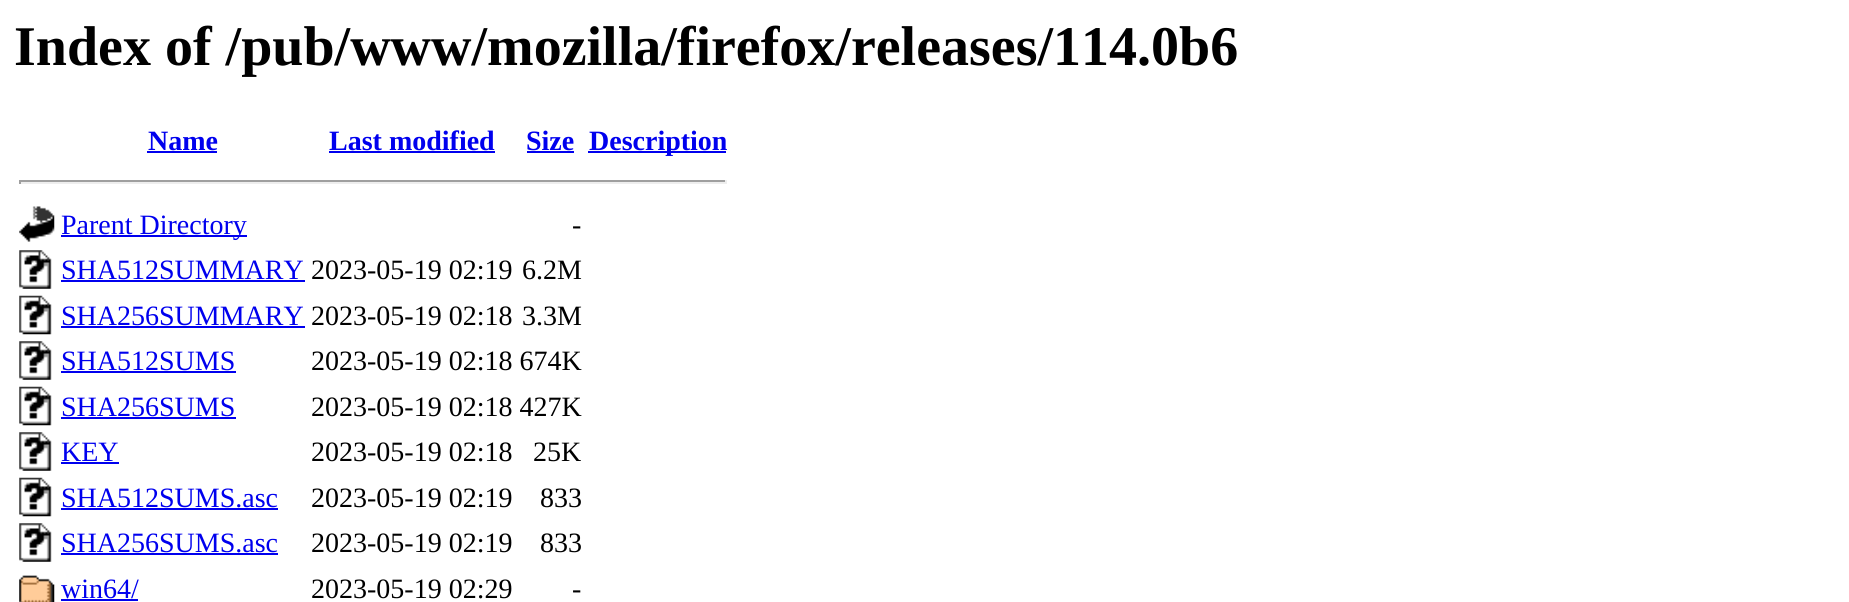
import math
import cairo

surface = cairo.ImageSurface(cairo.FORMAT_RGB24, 1849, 602)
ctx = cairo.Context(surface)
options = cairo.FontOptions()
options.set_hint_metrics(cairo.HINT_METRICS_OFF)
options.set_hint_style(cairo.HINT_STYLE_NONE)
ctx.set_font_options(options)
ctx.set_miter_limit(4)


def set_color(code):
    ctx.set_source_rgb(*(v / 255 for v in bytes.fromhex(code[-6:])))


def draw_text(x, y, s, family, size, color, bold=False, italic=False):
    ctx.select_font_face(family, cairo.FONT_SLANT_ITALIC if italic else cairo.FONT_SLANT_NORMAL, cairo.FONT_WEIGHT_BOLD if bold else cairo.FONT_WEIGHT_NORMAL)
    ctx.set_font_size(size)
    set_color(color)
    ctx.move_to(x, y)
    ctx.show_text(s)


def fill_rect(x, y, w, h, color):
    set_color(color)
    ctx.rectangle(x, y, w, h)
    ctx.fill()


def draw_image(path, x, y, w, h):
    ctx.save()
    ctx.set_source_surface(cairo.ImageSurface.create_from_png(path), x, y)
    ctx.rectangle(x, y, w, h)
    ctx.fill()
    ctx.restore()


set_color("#ffffff")
ctx.paint()
draw_text(14, 65, "Index of /pub/www/mozilla/firefox/releases/114.0b6", "Liberation Serif", 56, "#000000", bold=True)
draw_text(148, 150, "Name", "Liberation Serif", 28, "#0000ee", bold=True)
fill_rect(147, 151, 70, 2, "#0000ee")
draw_text(329, 150, "Last modified", "Liberation Serif", 28, "#0000ee", bold=True)
fill_rect(329, 151, 166, 2, "#0000ee")
draw_text(526, 150, "Size", "Liberation Serif", 28, "#0000ee", bold=True)
fill_rect(527, 151, 47, 2, "#0000ee")
fill_rect(588, 151, 138, 2, "#0000ee")
draw_text(589, 150, "Description", "Liberation Serif", 28, "#0000ee", bold=True)
fill_rect(19, 180, 707, 2, "#9f9f9f")
fill_rect(725, 180, 2, 4, "#eeeeee")
fill_rect(19, 182, 707, 2, "#eeeeee")
fill_rect(19, 180, 2, 4, "#9f9f9f")
draw_image("assets/img1.png", 19, 206, 36, 36)
fill_rect(61, 235, 186, 2, "#0000ee")
draw_text(61, 234, "Parent Directory", "Liberation Serif", 28, "#0000ee")
draw_text(572, 234, "-", "Liberation Serif", 28, "#000000")
draw_image("assets/img2.png", 19, 250, 33, 39)
draw_text(61, 279, "SHA512SUMMARY", "Liberation Serif", 28, "#0000ee")
fill_rect(61, 280, 244, 2, "#0000ee")
draw_text(311, 279, "2023-05-19 02:19", "Liberation Serif", 28, "#000000")
draw_text(522, 279, "6.2M", "Liberation Serif", 28, "#000000")
draw_image("assets/img3.png", 19, 295, 33, 40)
draw_text(61, 325, "SHA256SUMMARY", "Liberation Serif", 28, "#0000ee")
fill_rect(61, 326, 244, 2, "#0000ee")
draw_text(311, 325, "2023-05-19 02:18", "Liberation Serif", 28, "#000000")
draw_text(522, 325, "3.3M", "Liberation Serif", 28, "#000000")
draw_image("assets/img2.png", 19, 341, 33, 39)
draw_text(61, 370, "SHA512SUMS", "Liberation Serif", 28, "#0000ee")
fill_rect(61, 371, 175, 2, "#0000ee")
draw_text(311, 370, "2023-05-19 02:18 674K", "Liberation Serif", 28, "#000000")
draw_image("assets/img3.png", 19, 386, 33, 40)
draw_text(61, 416, "SHA256SUMS", "Liberation Serif", 28, "#0000ee")
fill_rect(61, 417, 175, 2, "#0000ee")
draw_text(311, 416, "2023-05-19 02:18 427K", "Liberation Serif", 28, "#000000")
draw_image("assets/img2.png", 19, 432, 33, 39)
draw_text(61, 461, "KEY", "Liberation Serif", 28, "#0000ee")
fill_rect(61, 462, 58, 2, "#0000ee")
draw_text(311, 461, "2023-05-19 02:18", "Liberation Serif", 28, "#000000")
draw_text(533, 461, "25K", "Liberation Serif", 28, "#000000")
draw_image("assets/img3.png", 19, 477, 33, 40)
draw_text(61, 507, "SHA512SUMS.asc", "Liberation Serif", 28, "#0000ee")
fill_rect(61, 508, 217, 2, "#0000ee")
draw_text(311, 507, "2023-05-19 02:19", "Liberation Serif", 28, "#000000")
draw_text(540, 507, "833", "Liberation Serif", 28, "#000000")
draw_image("assets/img2.png", 19, 523, 33, 39)
draw_text(61, 552, "SHA256SUMS.asc", "Liberation Serif", 28, "#0000ee")
fill_rect(61, 553, 217, 2, "#0000ee")
draw_text(311, 552, "2023-05-19 02:19", "Liberation Serif", 28, "#000000")
draw_text(540, 552, "833", "Liberation Serif", 28, "#000000")
draw_image("assets/img4.png", 19, 575, 36, 27)
draw_text(61, 598, "win64/", "Liberation Serif", 28, "#0000ee")
fill_rect(61, 599, 77, 2, "#0000ee")
draw_text(311, 598, "2023-05-19 02:29", "Liberation Serif", 28, "#000000")
draw_text(572, 598, "-", "Liberation Serif", 28, "#000000")
surface.write_to_png("output.png")
